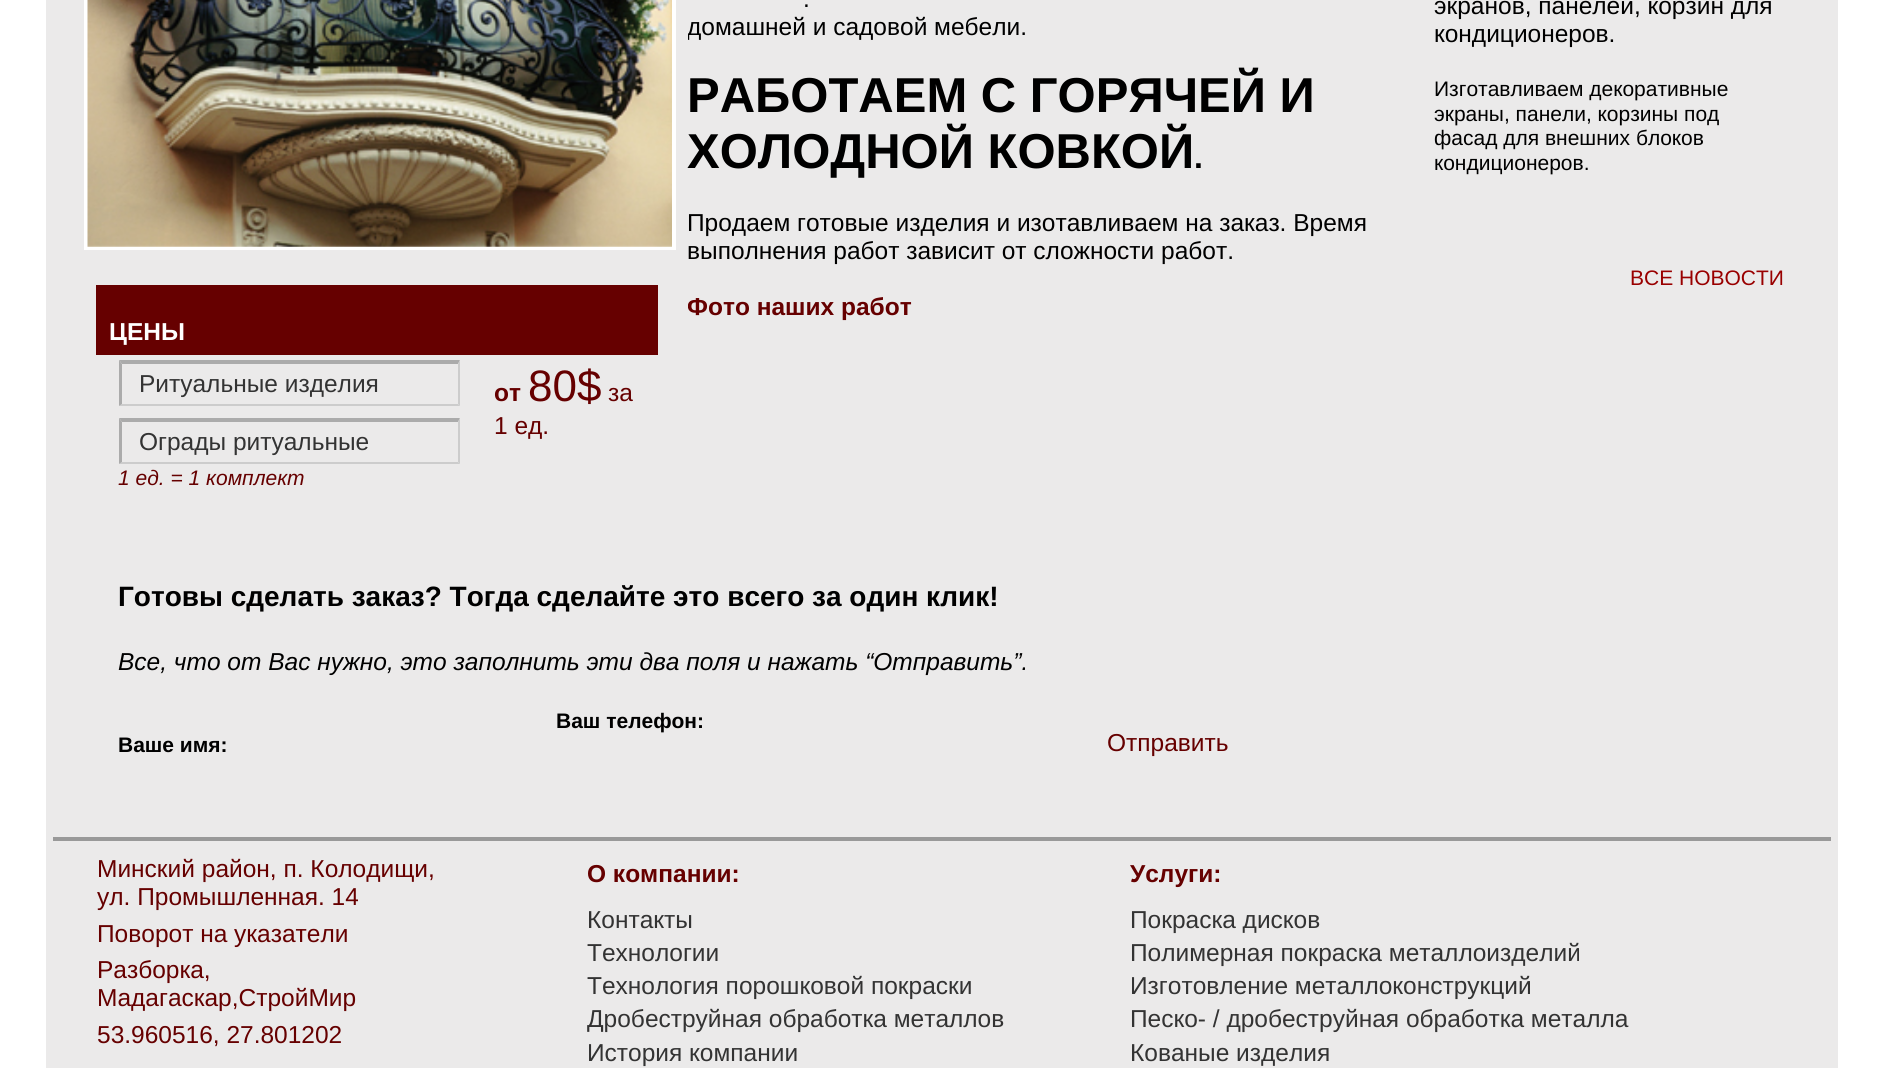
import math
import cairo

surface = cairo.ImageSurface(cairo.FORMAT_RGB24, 1881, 1068)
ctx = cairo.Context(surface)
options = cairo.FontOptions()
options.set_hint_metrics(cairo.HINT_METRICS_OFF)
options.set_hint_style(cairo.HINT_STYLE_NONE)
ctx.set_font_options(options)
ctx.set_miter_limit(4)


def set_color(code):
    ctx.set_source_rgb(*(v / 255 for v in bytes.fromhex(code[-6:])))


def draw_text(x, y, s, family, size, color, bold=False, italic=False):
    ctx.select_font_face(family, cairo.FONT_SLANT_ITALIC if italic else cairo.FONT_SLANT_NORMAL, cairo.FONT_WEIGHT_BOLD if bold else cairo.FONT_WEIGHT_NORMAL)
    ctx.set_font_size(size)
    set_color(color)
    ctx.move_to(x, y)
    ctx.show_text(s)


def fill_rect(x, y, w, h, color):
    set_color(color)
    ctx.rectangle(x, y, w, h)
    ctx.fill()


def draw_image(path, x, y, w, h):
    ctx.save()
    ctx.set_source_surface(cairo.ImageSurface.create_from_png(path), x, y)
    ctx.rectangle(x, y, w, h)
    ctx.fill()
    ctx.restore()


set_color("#ffffff")
ctx.paint()
fill_rect(46, 0, 1792, 1068, "#ebeaea")
draw_text(803, 7, ".", "Liberation Sans", 24.5, "#000000")
ctx.save()
ctx.rectangle(688, 0, 686, 376)
ctx.clip()
draw_text(687, 35, "домашней и садовой мебели.", "Liberation Sans", 24.5, "#000000")
ctx.restore()
draw_text(687, 112, "РАБОТАЕМ С ГОРЯЧЕЙ И", "Liberation Sans", 49, "#000000", bold=True)
draw_text(687, 168, "ХОЛОДНОЙ КОВКОЙ", "Liberation Sans", 49, "#000000", bold=True)
draw_text(1194, 168, ".", "Liberation Sans", 32, "#000000", bold=True)
draw_text(687, 231, "Продаем готовые изделия и изотавливаем на заказ. Время", "Liberation Sans", 24.5, "#000000")
draw_text(687, 259, "выполнения работ зависит от сложности работ.", "Liberation Sans", 24.5, "#000000")
ctx.save()
ctx.rectangle(688, 0, 686, 376)
ctx.clip()
draw_text(687, 315, "Фото наших работ", "Liberation Sans", 24.5, "#660000", bold=True)
ctx.restore()
ctx.rectangle(86, -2, 588, 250)
set_color("#ffffff")
ctx.set_line_width(4)
ctx.stroke()
draw_image("assets/img1.png", 87, 0, 585, 247)
fill_rect(96, 285, 562, 70, "#660000")
draw_text(109, 340, "ЦЕНЫ", "Liberation Sans", 24.5, "#ffffff", bold=True)
set_color("#ababab")
ctx.new_path()
ctx.move_to(119, 360)
ctx.line_to(460, 360)
ctx.line_to(458, 364)
ctx.line_to(122, 364)
ctx.close_path()
ctx.fill()
set_color("#cccccc")
ctx.new_path()
ctx.move_to(460, 360)
ctx.line_to(460, 406)
ctx.line_to(458, 404)
ctx.line_to(458, 364)
ctx.close_path()
ctx.fill()
ctx.new_path()
ctx.move_to(460, 406)
ctx.line_to(119, 406)
ctx.line_to(122, 404)
ctx.line_to(458, 404)
ctx.close_path()
ctx.fill()
set_color("#ababab")
ctx.new_path()
ctx.move_to(119, 406)
ctx.line_to(119, 360)
ctx.line_to(122, 364)
ctx.line_to(122, 404)
ctx.close_path()
ctx.fill()
draw_text(139, 392, "Ритуальные изделия", "Liberation Sans", 24.5, "#333333")
set_color("#ababab")
ctx.new_path()
ctx.move_to(119, 418)
ctx.line_to(460, 418)
ctx.line_to(458, 422)
ctx.line_to(122, 422)
ctx.close_path()
ctx.fill()
set_color("#cccccc")
ctx.new_path()
ctx.move_to(460, 418)
ctx.line_to(460, 464)
ctx.line_to(458, 462)
ctx.line_to(458, 422)
ctx.close_path()
ctx.fill()
ctx.new_path()
ctx.move_to(460, 464)
ctx.line_to(119, 464)
ctx.line_to(122, 462)
ctx.line_to(458, 462)
ctx.close_path()
ctx.fill()
set_color("#ababab")
ctx.new_path()
ctx.move_to(119, 464)
ctx.line_to(119, 418)
ctx.line_to(122, 422)
ctx.line_to(122, 462)
ctx.close_path()
ctx.fill()
draw_text(139, 450, "Ограды ритуальные", "Liberation Sans", 24.5, "#333333")
draw_text(494, 401, "от", "Liberation Sans", 24.5, "#660000", bold=True)
draw_text(528, 401, "80$", "Liberation Sans", 44, "#660000")
draw_text(608, 401, "за", "Liberation Sans", 24.5, "#660000")
draw_text(494, 434, "1 ед.", "Liberation Sans", 24.5, "#660000")
draw_text(118, 485, "1 ед. = 1 комплект", "Liberation Sans", 21, "#660000", italic=True)
draw_text(118, 606, "Готовы сделать заказ? Тогда сделайте это всего за один клик!", "Liberation Sans", 28, "#000000", bold=True)
draw_text(118, 670, "Все, что от Вас нужно, это заполнить эти два поля и нажать “Отправить”.", "Liberation Sans", 24.5, "#000000", italic=True)
draw_text(556, 728, "Ваш телeфон:", "Liberation Sans", 21, "#000000", bold=True)
draw_text(118, 752, "Ваше имя:", "Liberation Sans", 21, "#000000", bold=True)
draw_text(1107, 751, "Отправить", "Liberation Sans", 24.5, "#660000")
draw_text(1434, 14, "экранов, панелей, корзин для", "Liberation Sans", 24.5, "#000000")
draw_text(1434, 42, "кондиционеров.", "Liberation Sans", 24.5, "#000000")
draw_text(1434, 96, "Изготавливаем декоративные", "Liberation Sans", 21, "#000000")
draw_text(1434, 121, "экраны, панели, корзины под", "Liberation Sans", 21, "#000000")
draw_text(1434, 145, "фасад для внешних блоков", "Liberation Sans", 21, "#000000")
draw_text(1434, 170, "кондиционеров.", "Liberation Sans", 21, "#000000")
draw_text(1630, 285, "ВСЕ НОВОСТИ", "Liberation Sans", 21, "#990000")
fill_rect(53, 837, 1778, 4, "#999999")
draw_text(97, 877, "Минский район, п. Колодищи,", "Liberation Sans", 24.5, "#660000")
draw_text(97, 905, "ул. Промышленная. 14", "Liberation Sans", 24.5, "#660000")
draw_text(97, 942, "Поворот на указатели", "Liberation Sans", 24.5, "#660000")
draw_text(97, 978, "Разборка,", "Liberation Sans", 24.5, "#660000")
draw_text(97, 1006, "Мадагаскар,СтройМир", "Liberation Sans", 24.5, "#660000")
draw_text(97, 1043, "53.960516, 27.801202", "Liberation Sans", 24.5, "#660000")
draw_text(587, 882, "О компании:", "Liberation Sans", 24.5, "#660000", bold=True)
draw_text(587, 928, "Контакты", "Liberation Sans", 24.5, "#333333")
draw_text(587, 961, "Технологии", "Liberation Sans", 24.5, "#333333")
draw_text(587, 994, "Технология порошковой покраски", "Liberation Sans", 24.5, "#333333")
draw_text(587, 1027, "Дробеструйная обработка металлов", "Liberation Sans", 24.5, "#333333")
draw_text(587, 1061, "История компании", "Liberation Sans", 24.5, "#333333")
draw_text(1130, 882, "Услуги:", "Liberation Sans", 24.5, "#660000", bold=True)
draw_text(1130, 928, "Покраска дисков", "Liberation Sans", 24.5, "#333333")
draw_text(1130, 961, "Полимерная покраска металлоизделий", "Liberation Sans", 24.5, "#333333")
draw_text(1130, 994, "Изготовление металлоконструкций", "Liberation Sans", 24.5, "#333333")
draw_text(1130, 1027, "Песко- / дробеструйная обработка металла", "Liberation Sans", 24.5, "#333333")
draw_text(1130, 1061, "Кованые изделия", "Liberation Sans", 24.5, "#333333")
surface.write_to_png("output.png")
